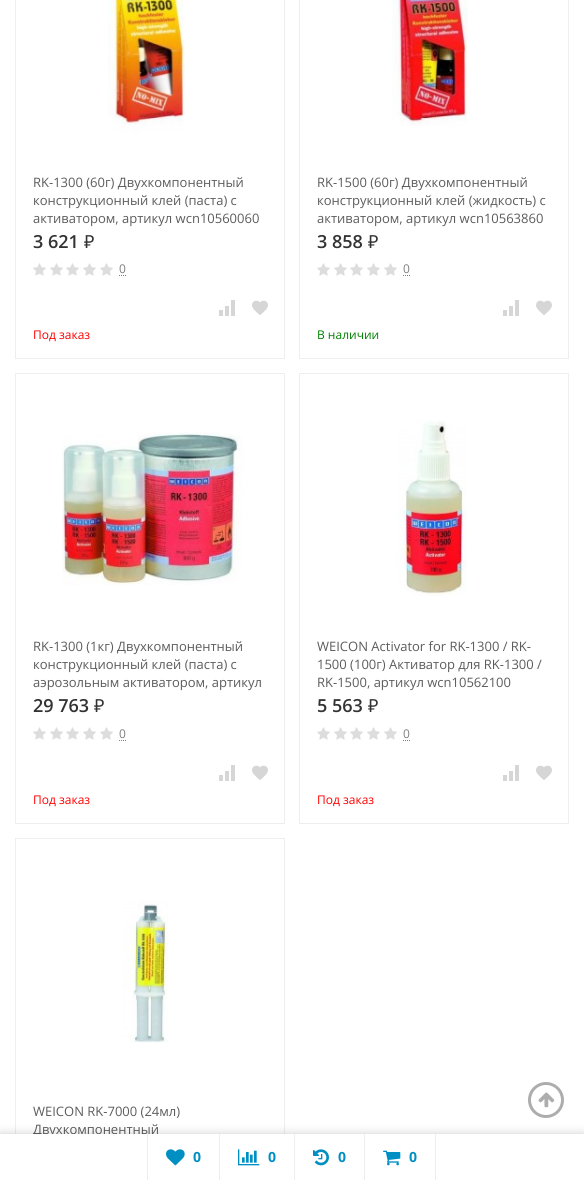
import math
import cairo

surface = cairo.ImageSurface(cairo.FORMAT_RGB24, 584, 1180)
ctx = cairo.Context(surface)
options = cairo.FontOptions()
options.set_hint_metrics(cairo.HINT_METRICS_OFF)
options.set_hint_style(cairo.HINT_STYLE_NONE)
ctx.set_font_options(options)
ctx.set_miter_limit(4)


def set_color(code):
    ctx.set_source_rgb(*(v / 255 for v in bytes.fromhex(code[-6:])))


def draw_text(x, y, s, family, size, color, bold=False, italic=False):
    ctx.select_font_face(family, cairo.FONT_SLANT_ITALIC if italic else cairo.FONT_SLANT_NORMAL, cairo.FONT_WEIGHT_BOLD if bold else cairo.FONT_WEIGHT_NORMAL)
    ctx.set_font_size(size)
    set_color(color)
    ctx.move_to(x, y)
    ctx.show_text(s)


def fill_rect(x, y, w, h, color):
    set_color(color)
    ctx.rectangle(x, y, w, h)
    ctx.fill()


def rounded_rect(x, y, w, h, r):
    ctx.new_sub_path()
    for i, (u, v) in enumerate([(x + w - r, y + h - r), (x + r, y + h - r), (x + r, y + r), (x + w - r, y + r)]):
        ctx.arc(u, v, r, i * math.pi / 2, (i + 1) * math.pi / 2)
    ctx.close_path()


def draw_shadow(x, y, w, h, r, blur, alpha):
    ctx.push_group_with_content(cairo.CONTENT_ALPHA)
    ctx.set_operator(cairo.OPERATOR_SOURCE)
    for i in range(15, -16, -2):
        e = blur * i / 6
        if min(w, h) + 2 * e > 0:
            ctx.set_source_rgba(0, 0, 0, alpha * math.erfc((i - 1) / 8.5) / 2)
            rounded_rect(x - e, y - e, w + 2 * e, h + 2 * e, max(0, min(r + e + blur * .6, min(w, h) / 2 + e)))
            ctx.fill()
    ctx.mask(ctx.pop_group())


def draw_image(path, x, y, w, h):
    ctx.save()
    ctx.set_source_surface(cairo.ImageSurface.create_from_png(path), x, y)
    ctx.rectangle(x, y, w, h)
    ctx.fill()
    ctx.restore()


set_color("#ffffff")
ctx.paint()
ctx.rectangle(15.5, -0.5, 269, 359)
set_color("#eeeeee")
ctx.set_line_width(1)
ctx.stroke()
draw_image("assets/img1.png", 108, 0, 77, 132)
draw_text(33, 187, "RK-1300 (60г) Двухкомпонентный", "Open Sans", 13, "#5c5c5c")
draw_text(33, 205, "конструкционный клей (паста) c", "Open Sans", 13, "#5c5c5c")
draw_text(33, 223, "активатором, артикул wcn10560060", "Open Sans", 13, "#5c5c5c")
draw_text(33, 248, "3 621", "Open Sans SemiBold", 18, "#333333")
draw_text(84, 248, "₽", "Noto Sans", 18, "#333333")
draw_image("assets/img2.png", 33, 263, 13, 13)
draw_image("assets/img2.png", 50, 263, 13, 13)
draw_image("assets/img2.png", 66, 263, 13, 13)
draw_image("assets/img2.png", 83, 263, 13, 13)
draw_image("assets/img2.png", 100, 263, 13, 13)
ctx.new_path()
ctx.move_to(119, 275.5)
ctx.line_to(120, 275.5)
ctx.move_to(121, 275.5)
ctx.line_to(122, 275.5)
ctx.move_to(123, 275.5)
ctx.line_to(124, 275.5)
ctx.move_to(125, 275.5)
ctx.line_to(126, 275.5)
set_color("#7e7e7e")
ctx.stroke()
draw_text(119, 273, "0", "Open Sans", 12, "#7e7e7e")
draw_image("assets/img3.png", 219, 300, 16, 16)
draw_image("assets/img4.png", 252, 300, 16, 15)
draw_text(33, 339, "Под заказ", "Open Sans", 12, "#ff0000")
ctx.rectangle(299.5, -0.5, 269, 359)
set_color("#eeeeee")
ctx.stroke()
draw_image("assets/img5.png", 392, 0, 76, 126)
draw_text(317, 187, "RK-1500 (60г) Двухкомпонентный", "Open Sans", 13, "#5c5c5c")
draw_text(317, 205, "конструкционный клей (жидкость) c", "Open Sans", 13, "#5c5c5c")
draw_text(317, 223, "активатором, артикул wcn10563860", "Open Sans", 13, "#5c5c5c")
draw_text(317, 248, "3 858", "Open Sans SemiBold", 18, "#333333")
draw_text(368, 248, "₽", "Noto Sans", 18, "#333333")
draw_image("assets/img2.png", 317, 263, 13, 13)
draw_image("assets/img2.png", 334, 263, 13, 13)
draw_image("assets/img2.png", 350, 263, 13, 13)
draw_image("assets/img2.png", 367, 263, 13, 13)
draw_image("assets/img2.png", 384, 263, 13, 13)
ctx.new_path()
ctx.move_to(403, 275.5)
ctx.line_to(404, 275.5)
ctx.move_to(405, 275.5)
ctx.line_to(406, 275.5)
ctx.move_to(407, 275.5)
ctx.line_to(408, 275.5)
ctx.move_to(409, 275.5)
ctx.line_to(410, 275.5)
set_color("#7e7e7e")
ctx.stroke()
draw_text(403, 273, "0", "Open Sans", 12, "#7e7e7e")
draw_image("assets/img3.png", 503, 300, 16, 16)
draw_image("assets/img4.png", 536, 300, 16, 15)
draw_text(317, 339, "В наличии", "Open Sans", 12, "#008000")
ctx.rectangle(15.5, 373.5, 269, 450)
set_color("#eeeeee")
ctx.stroke()
draw_image("assets/img6.png", 62, 432, 181, 153)
draw_text(33, 651, "RK-1300 (1кг) Двухкомпонентный", "Open Sans", 13, "#5c5c5c")
draw_text(33, 669, "конструкционный клей (паста) c", "Open Sans", 13, "#5c5c5c")
draw_text(33, 687, "аэрозольным активатором, артикул", "Open Sans", 13, "#5c5c5c")
draw_text(33, 712, "29 763", "Open Sans SemiBold", 18, "#333333")
draw_text(94, 712, "₽", "Noto Sans", 18, "#333333")
draw_image("assets/img2.png", 33, 727, 13, 13)
draw_image("assets/img2.png", 50, 727, 13, 13)
draw_image("assets/img2.png", 66, 727, 13, 13)
draw_image("assets/img2.png", 83, 727, 13, 13)
draw_image("assets/img2.png", 100, 727, 13, 13)
ctx.new_path()
ctx.move_to(119, 740.5)
ctx.line_to(120, 740.5)
ctx.move_to(121, 740.5)
ctx.line_to(122, 740.5)
ctx.move_to(123, 740.5)
ctx.line_to(124, 740.5)
ctx.move_to(125, 740.5)
ctx.line_to(126, 740.5)
set_color("#7e7e7e")
ctx.stroke()
draw_text(119, 738, "0", "Open Sans", 12, "#7e7e7e")
draw_image("assets/img3.png", 219, 765, 16, 16)
draw_image("assets/img4.png", 252, 765, 16, 15)
draw_text(33, 804, "Под заказ", "Open Sans", 12, "#ff0000")
ctx.rectangle(299.5, 373.5, 269, 450)
set_color("#eeeeee")
ctx.stroke()
draw_image("assets/img7.png", 396, 420, 71, 176)
draw_text(317, 651, "WEICON Activator for RK-1300 / RK-", "Open Sans", 13, "#5c5c5c")
draw_text(317, 669, "1500 (100г) Активатор для RK-1300 /", "Open Sans", 13, "#5c5c5c")
draw_text(317, 687, "RK-1500, артикул wcn10562100", "Open Sans", 13, "#5c5c5c")
draw_text(317, 712, "5 563", "Open Sans SemiBold", 18, "#333333")
draw_text(368, 712, "₽", "Noto Sans", 18, "#333333")
draw_image("assets/img2.png", 317, 727, 13, 13)
draw_image("assets/img2.png", 334, 727, 13, 13)
draw_image("assets/img2.png", 350, 727, 13, 13)
draw_image("assets/img2.png", 367, 727, 13, 13)
draw_image("assets/img2.png", 384, 727, 13, 13)
ctx.new_path()
ctx.move_to(403, 740.5)
ctx.line_to(404, 740.5)
ctx.move_to(405, 740.5)
ctx.line_to(406, 740.5)
ctx.move_to(407, 740.5)
ctx.line_to(408, 740.5)
ctx.move_to(409, 740.5)
ctx.line_to(410, 740.5)
set_color("#7e7e7e")
ctx.stroke()
draw_text(403, 738, "0", "Open Sans", 12, "#7e7e7e")
draw_image("assets/img3.png", 503, 765, 16, 16)
draw_image("assets/img4.png", 536, 765, 16, 15)
draw_text(317, 804, "Под заказ", "Open Sans", 12, "#ff0000")
ctx.rectangle(15.5, 838.5, 269, 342)
set_color("#eeeeee")
ctx.stroke()
draw_image("assets/img8.png", 123, 900, 45, 143)
draw_text(33, 1116, "WEICON RK-7000 (24мл)", "Open Sans", 13, "#5c5c5c")
draw_text(33, 1134, "Двухкомпонентный", "Open Sans", 13, "#5c5c5c")
ctx.new_path()
ctx.arc(546, 1100, 16.5, 0, 2 * math.pi)
set_color("#adadad")
ctx.set_line_width(3)
ctx.stroke()
draw_image("assets/img9.png", 538, 1092, 17, 16)
set_color("#000000")
draw_shadow(0, 1134, 584, 46, 0, 5, 0.2)
fill_rect(0, 1134, 584, 46, "#ffffff")
fill_rect(147, 1134, 1, 46, "#eeeeee")
draw_image("assets/img10.png", 166, 1149, 19, 17)
draw_text(193, 1162, "0", "Open Sans", 14, "#008fc3", bold=True)
fill_rect(219, 1134, 1, 46, "#eeeeee")
draw_image("assets/img11.png", 238, 1149, 22, 17)
draw_text(268, 1162, "0", "Open Sans", 14, "#008fc3", bold=True)
fill_rect(294, 1134, 1, 46, "#eeeeee")
draw_image("assets/img12.png", 313, 1149, 16, 17)
draw_text(338, 1162, "0", "Open Sans", 14, "#008fc3", bold=True)
fill_rect(435, 1134, 1, 46, "#eeeeee")
fill_rect(364, 1134, 1, 46, "#eeeeee")
draw_image("assets/img13.png", 383, 1150, 18, 16)
draw_text(409, 1162, "0", "Open Sans", 14, "#008fc3", bold=True)
surface.write_to_png("output.png")
